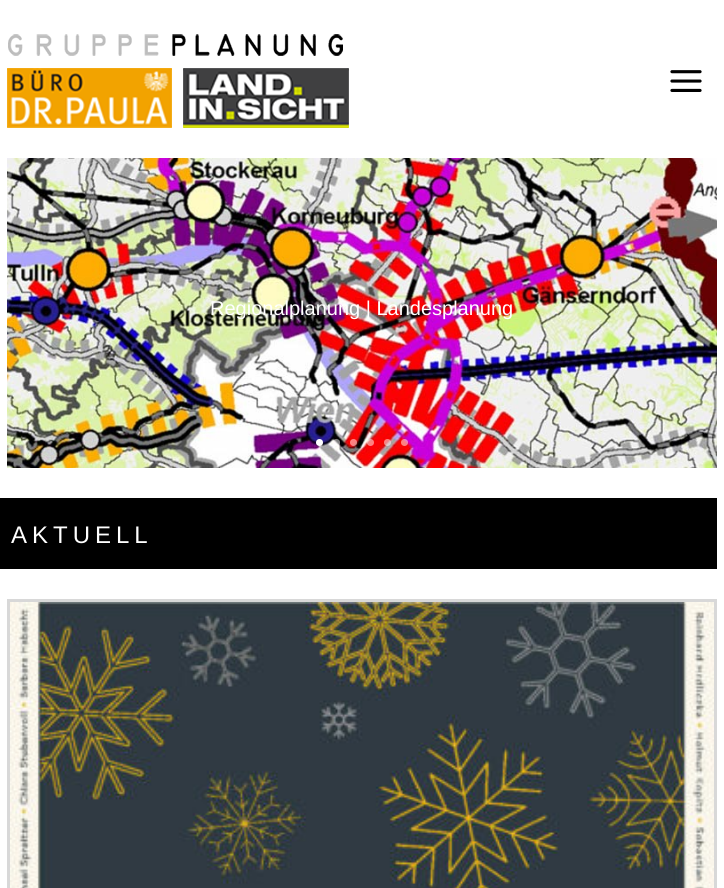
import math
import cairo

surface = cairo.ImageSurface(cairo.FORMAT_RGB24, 724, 888)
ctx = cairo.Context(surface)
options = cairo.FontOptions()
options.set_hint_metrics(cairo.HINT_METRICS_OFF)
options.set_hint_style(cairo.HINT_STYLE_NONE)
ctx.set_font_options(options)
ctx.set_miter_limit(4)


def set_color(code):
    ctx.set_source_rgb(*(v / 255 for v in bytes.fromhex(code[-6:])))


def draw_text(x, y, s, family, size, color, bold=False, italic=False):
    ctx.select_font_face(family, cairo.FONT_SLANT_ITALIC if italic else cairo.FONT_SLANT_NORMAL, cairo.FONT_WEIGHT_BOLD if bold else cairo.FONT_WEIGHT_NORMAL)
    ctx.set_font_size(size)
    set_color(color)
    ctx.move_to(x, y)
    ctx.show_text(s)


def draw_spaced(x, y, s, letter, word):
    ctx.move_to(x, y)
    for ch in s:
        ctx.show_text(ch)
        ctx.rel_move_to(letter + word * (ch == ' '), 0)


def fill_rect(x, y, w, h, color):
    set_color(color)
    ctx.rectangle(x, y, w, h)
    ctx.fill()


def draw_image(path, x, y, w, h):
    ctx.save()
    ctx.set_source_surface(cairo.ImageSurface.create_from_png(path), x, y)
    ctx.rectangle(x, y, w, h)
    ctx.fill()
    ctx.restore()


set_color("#ffffff")
ctx.paint()
draw_image("assets/img1.png", 7, 34, 342, 94)
draw_image("assets/img2.png", 670, 70, 32, 22)
draw_image("assets/img3.png", 7, 158, 710, 310)
draw_text(210, 315, "Regionalplanung | Landesplanung", "Liberation Sans", 20, "#ffffff")
ctx.new_path()
ctx.arc(319.5, 442.5, 3.5, 0, 2 * math.pi)
ctx.fill()
ctx.set_source_rgba(1, 1, 1, 0.5)
ctx.arc(336.5, 442.5, 3.5, 0, 2 * math.pi)
ctx.fill()
ctx.arc(353.5, 442.5, 3.5, 0, 2 * math.pi)
ctx.fill()
ctx.arc(370.5, 442.5, 3.5, 0, 2 * math.pi)
ctx.fill()
ctx.arc(387.5, 442.5, 3.5, 0, 2 * math.pi)
ctx.fill()
ctx.arc(404.5, 442.5, 3.5, 0, 2 * math.pi)
ctx.fill()
fill_rect(0, 498, 717, 71, "#000000")
ctx.set_font_size(24)
set_color("#ffffff")
draw_spaced(11, 543, "AKTUELL", 5, 0)
ctx.rectangle(9, 601, 706, 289)
set_color("#d8d8d8")
ctx.set_line_width(4)
ctx.stroke()
draw_image("assets/img4.png", 10, 602, 704, 286)
surface.write_to_png("output.png")
